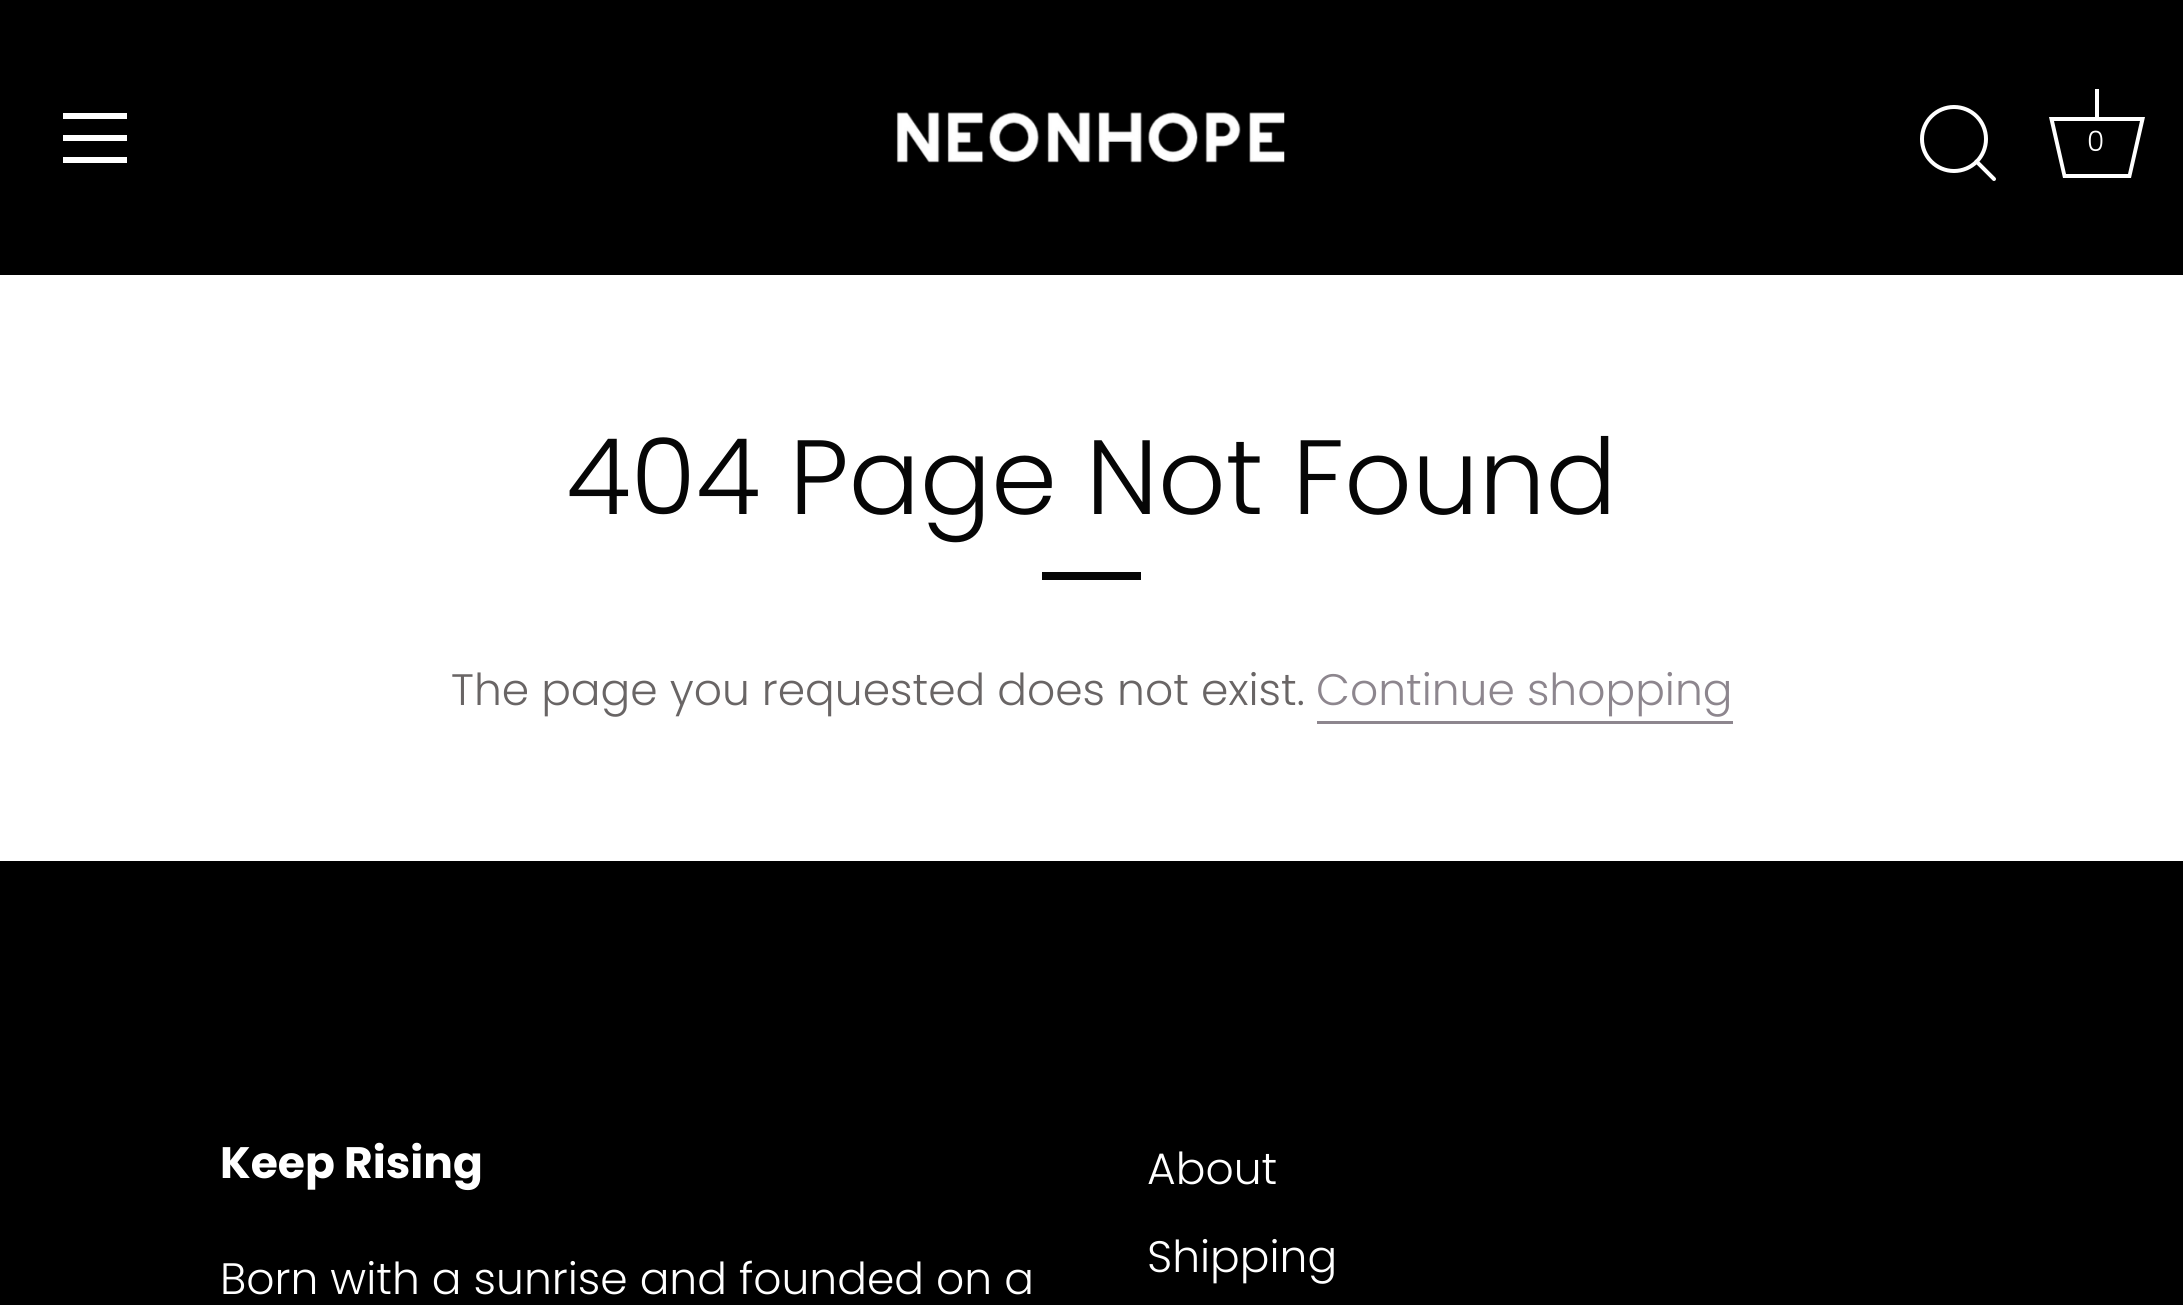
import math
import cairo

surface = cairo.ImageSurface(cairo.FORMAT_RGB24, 2183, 1305)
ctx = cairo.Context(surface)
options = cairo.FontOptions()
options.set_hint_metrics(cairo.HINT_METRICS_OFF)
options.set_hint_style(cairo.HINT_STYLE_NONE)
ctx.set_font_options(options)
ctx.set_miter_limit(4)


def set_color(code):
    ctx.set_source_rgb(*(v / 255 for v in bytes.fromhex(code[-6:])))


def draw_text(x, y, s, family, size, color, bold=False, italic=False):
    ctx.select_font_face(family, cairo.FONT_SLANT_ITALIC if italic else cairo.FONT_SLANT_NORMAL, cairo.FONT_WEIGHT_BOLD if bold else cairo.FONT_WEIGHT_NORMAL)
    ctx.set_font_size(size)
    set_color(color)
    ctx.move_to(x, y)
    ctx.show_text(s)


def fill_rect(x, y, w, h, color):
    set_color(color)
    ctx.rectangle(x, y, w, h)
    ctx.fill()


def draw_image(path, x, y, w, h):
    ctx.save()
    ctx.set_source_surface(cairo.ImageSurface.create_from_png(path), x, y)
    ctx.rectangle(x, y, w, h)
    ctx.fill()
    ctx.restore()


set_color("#ffffff")
ctx.paint()
fill_rect(0, 0, 2183, 275, "#000000")
fill_rect(63, 113, 64, 6, "#ffffff")
fill_rect(63, 135, 64, 6, "#ffffff")
fill_rect(63, 157, 64, 6, "#ffffff")
draw_image("assets/img1.png", 896, 112, 389, 51)
ctx.arc(1954, 139, 32, 0, 2 * math.pi)
ctx.set_line_width(4)
ctx.stroke()
ctx.new_path()
ctx.move_to(1994, 179)
ctx.line_to(1976.5, 161.5)
ctx.set_line_cap(cairo.LINE_CAP_ROUND)
ctx.set_line_join(cairo.LINE_JOIN_ROUND)
ctx.stroke()
fill_rect(2095, 89, 4, 28, "#ffffff")
ctx.new_path()
ctx.move_to(2140, 121)
ctx.line_to(2128, 174)
ctx.line_to(2066, 174)
ctx.line_to(2054, 121)
ctx.line_to(2140, 121)
ctx.move_to(2145, 117)
ctx.line_to(2049, 117)
ctx.line_to(2063, 178)
ctx.line_to(2131, 178)
ctx.close_path()
ctx.fill()
draw_text(2087, 151, "0", "Poppins Light", 28, "#ffffff")
draw_text(566, 514, "404 Page Not Found", "Poppins Light", 105.5, "#060606")
fill_rect(1042, 572, 99, 8, "#060606")
draw_text(451, 705, "The page you requested does not exist.", "Poppins Light", 44, "#696565")
draw_text(1316, 705, "Continue shopping", "Poppins Light", 44, "#8d868e")
fill_rect(1317, 721, 416, 3, "#8d868e")
fill_rect(0, 861, 2183, 444, "#000000")
draw_text(220, 1178, "Keep Rising", "Poppins", 44, "#ffffff", bold=True)
draw_text(220, 1294, "Born with a sunrise and founded on a", "Poppins Light", 44, "#ffffff")
draw_text(1147, 1184, "About", "Poppins Light", 44, "#ffffff")
draw_text(1147, 1272, "Shipping", "Poppins Light", 44, "#ffffff")
surface.write_to_png("output.png")
